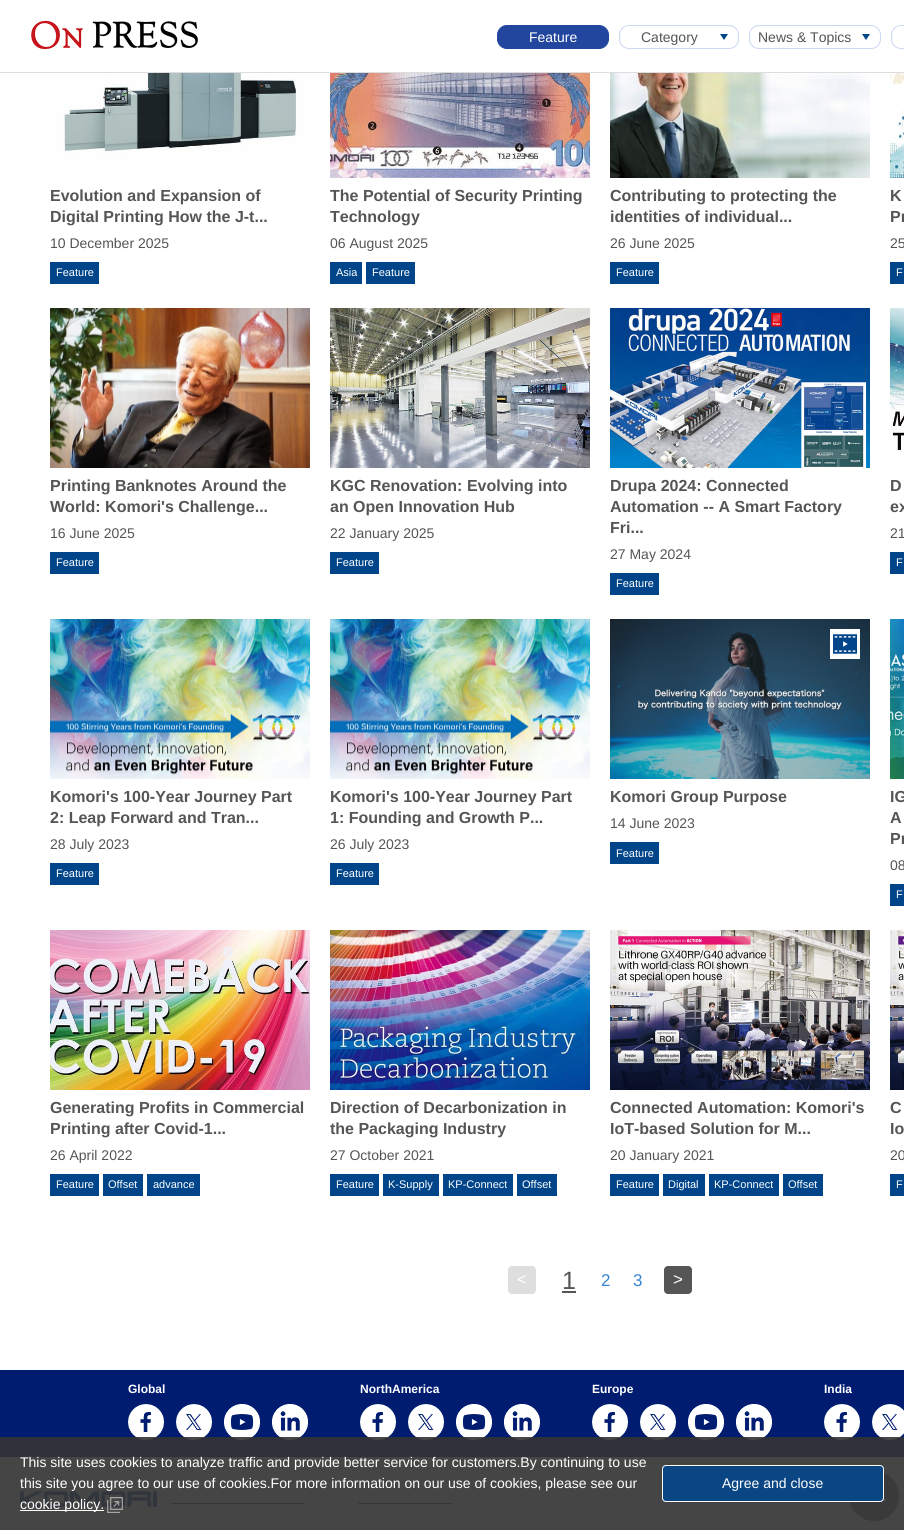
import math
import cairo

surface = cairo.ImageSurface(cairo.FORMAT_RGB24, 904, 1530)
ctx = cairo.Context(surface)
options = cairo.FontOptions()
options.set_hint_metrics(cairo.HINT_METRICS_OFF)
options.set_hint_style(cairo.HINT_STYLE_NONE)
ctx.set_font_options(options)
ctx.set_miter_limit(4)


def set_color(code):
    ctx.set_source_rgb(*(v / 255 for v in bytes.fromhex(code[-6:])))


def draw_text(x, y, s, family, size, color, bold=False, italic=False):
    ctx.select_font_face(family, cairo.FONT_SLANT_ITALIC if italic else cairo.FONT_SLANT_NORMAL, cairo.FONT_WEIGHT_BOLD if bold else cairo.FONT_WEIGHT_NORMAL)
    ctx.set_font_size(size)
    set_color(color)
    ctx.move_to(x, y)
    ctx.show_text(s)


def fill_rect(x, y, w, h, color):
    set_color(color)
    ctx.rectangle(x, y, w, h)
    ctx.fill()


def rounded_rect(x, y, w, h, r):
    ctx.new_sub_path()
    for i, (u, v) in enumerate([(x + w - r, y + h - r), (x + r, y + h - r), (x + r, y + r), (x + w - r, y + r)]):
        ctx.arc(u, v, r, i * math.pi / 2, (i + 1) * math.pi / 2)
    ctx.close_path()


def draw_image(path, x, y, w, h):
    ctx.save()
    ctx.set_source_surface(cairo.ImageSurface.create_from_png(path), x, y)
    ctx.rectangle(x, y, w, h)
    ctx.fill()
    ctx.restore()


set_color("#ffffff")
ctx.paint()
fill_rect(0, 72, 904, 1, "#dddddd")
draw_image("assets/img1.png", 31, 20, 167, 30)
set_color("#22469e")
rounded_rect(497.5, 25.5, 111, 23, 9.5)
ctx.fill_preserve()
ctx.set_line_width(1)
ctx.stroke()
draw_text(529, 42, "Feature", "Liberation Sans", 14, "#ffffff")
rounded_rect(619.5, 25.5, 119, 23, 9.5)
set_color("#cbd7f3")
ctx.stroke()
draw_text(641, 42, "Category", "Liberation Sans", 14, "#555555")
set_color("#00458a")
ctx.new_path()
ctx.move_to(720, 34)
ctx.line_to(728, 34)
ctx.line_to(724, 40)
ctx.close_path()
ctx.fill()
rounded_rect(749.5, 25.5, 131, 23, 9.5)
set_color("#cbd7f3")
ctx.stroke()
draw_text(758, 42, "News & Topics", "Liberation Sans", 14, "#555555")
set_color("#00458a")
ctx.new_path()
ctx.move_to(862, 34)
ctx.line_to(870, 34)
ctx.line_to(866, 40)
ctx.close_path()
ctx.fill()
rounded_rect(891.5, 25.5, 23, 23, 9.5)
set_color("#cbd7f3")
ctx.stroke()
draw_image("assets/img2.png", 50, 73, 260, 105)
draw_text(50, 201, "Evolution and Expansion of", "Liberation Sans", 16, "#555555", bold=True)
draw_text(50, 222, "Digital Printing How the J-t...", "Liberation Sans", 16, "#555555", bold=True)
draw_text(50, 248, "10 December 2025", "Liberation Sans", 14, "#555555")
fill_rect(50, 262, 49, 22, "#00458a")
draw_text(56, 276, "Feature", "Liberation Sans", 11, "#ffffff")
draw_image("assets/img3.png", 330, 73, 260, 105)
draw_text(330, 201, "The Potential of Security Printing", "Liberation Sans", 16, "#555555", bold=True)
draw_text(330, 222, "Technology", "Liberation Sans", 16, "#555555", bold=True)
draw_text(330, 248, "06 August 2025", "Liberation Sans", 14, "#555555")
fill_rect(330, 262, 32, 22, "#00458a")
draw_text(336, 276, "Asia", "Liberation Sans", 11, "#ffffff")
fill_rect(366, 262, 49, 22, "#00458a")
draw_text(372, 276, "Feature", "Liberation Sans", 11, "#ffffff")
draw_image("assets/img4.png", 610, 73, 260, 105)
draw_text(610, 201, "Contributing to protecting the", "Liberation Sans", 16, "#555555", bold=True)
draw_text(610, 222, "identities of individual...", "Liberation Sans", 16, "#555555", bold=True)
draw_text(610, 248, "26 June 2025", "Liberation Sans", 14, "#555555")
fill_rect(610, 262, 49, 22, "#00458a")
draw_text(616, 276, "Feature", "Liberation Sans", 11, "#ffffff")
draw_image("assets/img5.png", 890, 73, 14, 105)
draw_text(890, 201, "K", "Liberation Sans", 16, "#555555", bold=True)
draw_text(890, 222, "Pr", "Liberation Sans", 16, "#555555", bold=True)
draw_text(890, 248, "25", "Liberation Sans", 14, "#555555")
fill_rect(890, 262, 14, 22, "#00458a")
draw_text(896, 276, "F", "Liberation Sans", 11, "#ffffff")
draw_image("assets/img6.png", 50, 308, 260, 160)
draw_text(50, 491, "Printing Banknotes Around the", "Liberation Sans", 16, "#555555", bold=True)
draw_text(50, 512, "World: Komori's Challenge...", "Liberation Sans", 16, "#555555", bold=True)
draw_text(50, 538, "16 June 2025", "Liberation Sans", 14, "#555555")
fill_rect(50, 552, 49, 22, "#00458a")
draw_text(56, 566, "Feature", "Liberation Sans", 11, "#ffffff")
draw_image("assets/img7.png", 330, 308, 260, 160)
draw_text(330, 491, "KGC Renovation: Evolving into", "Liberation Sans", 16, "#555555", bold=True)
draw_text(330, 512, "an Open Innovation Hub", "Liberation Sans", 16, "#555555", bold=True)
draw_text(330, 538, "22 January 2025", "Liberation Sans", 14, "#555555")
fill_rect(330, 552, 49, 22, "#00458a")
draw_text(336, 566, "Feature", "Liberation Sans", 11, "#ffffff")
draw_image("assets/img8.png", 610, 308, 260, 160)
draw_text(610, 491, "Drupa 2024: Connected", "Liberation Sans", 16, "#555555", bold=True)
draw_text(610, 512, "Automation -- A Smart Factory", "Liberation Sans", 16, "#555555", bold=True)
draw_text(610, 533, "Fri...", "Liberation Sans", 16, "#555555", bold=True)
draw_text(610, 559, "27 May 2024", "Liberation Sans", 14, "#555555")
fill_rect(610, 573, 49, 22, "#00458a")
draw_text(616, 587, "Feature", "Liberation Sans", 11, "#ffffff")
draw_image("assets/img9.png", 890, 308, 14, 160)
draw_text(890, 491, "D", "Liberation Sans", 16, "#555555", bold=True)
draw_text(890, 512, "ex", "Liberation Sans", 16, "#555555", bold=True)
draw_text(890, 538, "21", "Liberation Sans", 14, "#555555")
fill_rect(890, 552, 14, 22, "#00458a")
draw_text(896, 566, "F", "Liberation Sans", 11, "#ffffff")
draw_image("assets/img10.png", 50, 619, 260, 160)
draw_text(50, 802, "Komori's 100-Year Journey Part", "Liberation Sans", 16, "#555555", bold=True)
draw_text(50, 823, "2: Leap Forward and Tran...", "Liberation Sans", 16, "#555555", bold=True)
draw_text(50, 849, "28 July 2023", "Liberation Sans", 14, "#555555")
fill_rect(50, 863, 49, 22, "#00458a")
draw_text(56, 877, "Feature", "Liberation Sans", 11, "#ffffff")
draw_image("assets/img10.png", 330, 619, 260, 160)
draw_text(330, 802, "Komori's 100-Year Journey Part", "Liberation Sans", 16, "#555555", bold=True)
draw_text(330, 823, "1: Founding and Growth P...", "Liberation Sans", 16, "#555555", bold=True)
draw_text(330, 849, "26 July 2023", "Liberation Sans", 14, "#555555")
fill_rect(330, 863, 49, 22, "#00458a")
draw_text(336, 877, "Feature", "Liberation Sans", 11, "#ffffff")
draw_image("assets/img11.png", 610, 619, 260, 160)
fill_rect(830, 629, 30, 30, "#ffffff")
draw_image("assets/img12.png", 833, 634, 24, 20)
draw_text(610, 802, "Komori Group Purpose", "Liberation Sans", 16, "#555555", bold=True)
draw_text(610, 828, "14 June 2023", "Liberation Sans", 14, "#555555")
fill_rect(610, 842, 49, 22, "#00458a")
draw_text(616, 857, "Feature", "Liberation Sans", 11, "#ffffff")
draw_image("assets/img13.png", 890, 619, 14, 160)
draw_text(890, 802, "IG", "Liberation Sans", 16, "#555555", bold=True)
draw_text(890, 823, "A", "Liberation Sans", 16, "#555555", bold=True)
draw_text(890, 844, "Pr", "Liberation Sans", 16, "#555555", bold=True)
draw_text(890, 870, "08", "Liberation Sans", 14, "#555555")
fill_rect(890, 884, 14, 22, "#00458a")
draw_text(896, 898, "F", "Liberation Sans", 11, "#ffffff")
draw_image("assets/img14.png", 50, 930, 260, 160)
draw_text(50, 1113, "Generating Profits in Commercial", "Liberation Sans", 16, "#555555", bold=True)
draw_text(50, 1134, "Printing after Covid-1...", "Liberation Sans", 16, "#555555", bold=True)
draw_text(50, 1160, "26 April 2022", "Liberation Sans", 14, "#555555")
fill_rect(50, 1174, 49, 22, "#00458a")
draw_text(56, 1188, "Feature", "Liberation Sans", 11, "#ffffff")
fill_rect(103, 1174, 40, 22, "#00458a")
draw_text(108, 1188, "Offset", "Liberation Sans", 11, "#ffffff")
fill_rect(147, 1174, 53, 22, "#00458a")
draw_text(153, 1188, "advance", "Liberation Sans", 11, "#ffffff")
draw_image("assets/img15.png", 330, 930, 260, 160)
draw_text(330, 1113, "Direction of Decarbonization in", "Liberation Sans", 16, "#555555", bold=True)
draw_text(330, 1134, "the Packaging Industry", "Liberation Sans", 16, "#555555", bold=True)
draw_text(330, 1160, "27 October 2021", "Liberation Sans", 14, "#555555")
fill_rect(330, 1174, 49, 22, "#00458a")
draw_text(336, 1188, "Feature", "Liberation Sans", 11, "#ffffff")
fill_rect(383, 1174, 56, 22, "#00458a")
draw_text(388, 1188, "K-Supply", "Liberation Sans", 11, "#ffffff")
fill_rect(443, 1174, 70, 22, "#00458a")
draw_text(448, 1188, "KP-Connect", "Liberation Sans", 11, "#ffffff")
fill_rect(517, 1174, 40, 22, "#00458a")
draw_text(522, 1188, "Offset", "Liberation Sans", 11, "#ffffff")
draw_image("assets/img16.png", 610, 930, 260, 160)
draw_text(610, 1113, "Connected Automation: Komori's", "Liberation Sans", 16, "#555555", bold=True)
draw_text(610, 1134, "IoT-based Solution for M...", "Liberation Sans", 16, "#555555", bold=True)
draw_text(610, 1160, "20 January 2021", "Liberation Sans", 14, "#555555")
fill_rect(610, 1174, 49, 22, "#00458a")
draw_text(616, 1188, "Feature", "Liberation Sans", 11, "#ffffff")
fill_rect(663, 1174, 42, 22, "#00458a")
draw_text(668, 1188, "Digital", "Liberation Sans", 11, "#ffffff")
fill_rect(709, 1174, 70, 22, "#00458a")
draw_text(714, 1188, "KP-Connect", "Liberation Sans", 11, "#ffffff")
fill_rect(783, 1174, 40, 22, "#00458a")
draw_text(788, 1188, "Offset", "Liberation Sans", 11, "#ffffff")
draw_image("assets/img17.png", 890, 930, 14, 160)
draw_text(890, 1113, "C", "Liberation Sans", 16, "#555555", bold=True)
draw_text(890, 1134, "Io", "Liberation Sans", 16, "#555555", bold=True)
draw_text(890, 1160, "20", "Liberation Sans", 14, "#555555")
fill_rect(890, 1174, 14, 22, "#00458a")
draw_text(896, 1188, "F", "Liberation Sans", 11, "#ffffff")
set_color("#dedede")
rounded_rect(508, 1266, 28, 28, 4)
ctx.fill()
draw_text(517, 1285, "<", "Liberation Sans", 17, "#ffffff")
draw_text(562, 1289, "1", "Liberation Sans", 25, "#555555")
fill_rect(562, 1291, 14, 2, "#555555")
draw_text(601, 1286, "2", "Liberation Sans", 17, "#3786d1")
draw_text(633, 1286, "3", "Liberation Sans", 17, "#3786d1")
set_color("#555555")
rounded_rect(664, 1266, 28, 28, 4)
ctx.fill()
draw_text(673, 1285, ">", "Liberation Sans", 17, "#ffffff")
fill_rect(0, 1370, 904, 87, "#001c71")
draw_text(128, 1393, "Global", "Liberation Sans", 12, "#ffffff", bold=True)
draw_image("assets/img18.png", 128, 1404, 36, 36)
draw_image("assets/img19.png", 176, 1404, 36, 36)
draw_image("assets/img20.png", 224, 1404, 36, 36)
draw_image("assets/img21.png", 272, 1404, 36, 36)
draw_text(360, 1393, "NorthAmerica", "Liberation Sans", 12, "#ffffff", bold=True)
draw_image("assets/img18.png", 360, 1404, 36, 36)
draw_image("assets/img19.png", 408, 1404, 36, 36)
draw_image("assets/img20.png", 456, 1404, 36, 36)
draw_image("assets/img22.png", 504, 1404, 36, 36)
draw_text(592, 1393, "Europe", "Liberation Sans", 12, "#ffffff", bold=True)
draw_image("assets/img23.png", 592, 1404, 36, 36)
draw_image("assets/img19.png", 640, 1404, 36, 36)
draw_image("assets/img20.png", 688, 1404, 36, 36)
draw_image("assets/img24.png", 736, 1404, 36, 36)
draw_text(824, 1393, "India", "Liberation Sans", 12, "#ffffff", bold=True)
draw_image("assets/img23.png", 824, 1404, 36, 36)
draw_image("assets/img25.png", 872, 1404, 32, 36)
fill_rect(0, 1457, 904, 73, "#eeeeee")
draw_image("assets/img27.png", 20, 1491, 137, 16)
fill_rect(171, 1503, 133, 1, "#555555")
fill_rect(358, 1503, 94, 1, "#555555")
set_color("#767676")
ctx.arc(874, 1496, 25, 0, 2 * math.pi)
ctx.fill()
ctx.new_path()
ctx.move_to(885.5, 1501)
ctx.line_to(874, 1491)
ctx.line_to(862.5, 1501)
set_color("#fbfbfb")
ctx.set_line_width(3)
ctx.stroke()
ctx.set_source_rgba(0.2, 0.2, 0.2, 0.9)
ctx.rectangle(0, 1437, 904, 93)
ctx.fill()
draw_text(20, 1467, "This site uses cookies to analyze traffic and provide better service for customers.By continuing to use", "Liberation Sans", 14, "#ffffff")
draw_text(20, 1488, "this site you agree to our use of cookies.For more information on our use of cookies, please see our", "Liberation Sans", 14, "#ffffff")
fill_rect(20, 1510, 84, 1, "#ffffff")
draw_text(20, 1509, "cookie policy.", "Liberation Sans", 14, "#ffffff")
draw_image("assets/img26.png", 107, 1497, 16, 16)
set_color("#0b4684")
rounded_rect(662.5, 1465.5, 221, 36, 3.5)
ctx.fill_preserve()
set_color("#ffffff")
ctx.set_line_width(1)
ctx.stroke()
draw_text(722, 1488, "Agree and close", "Liberation Sans", 14, "#ffffff")
surface.write_to_png("output.png")
